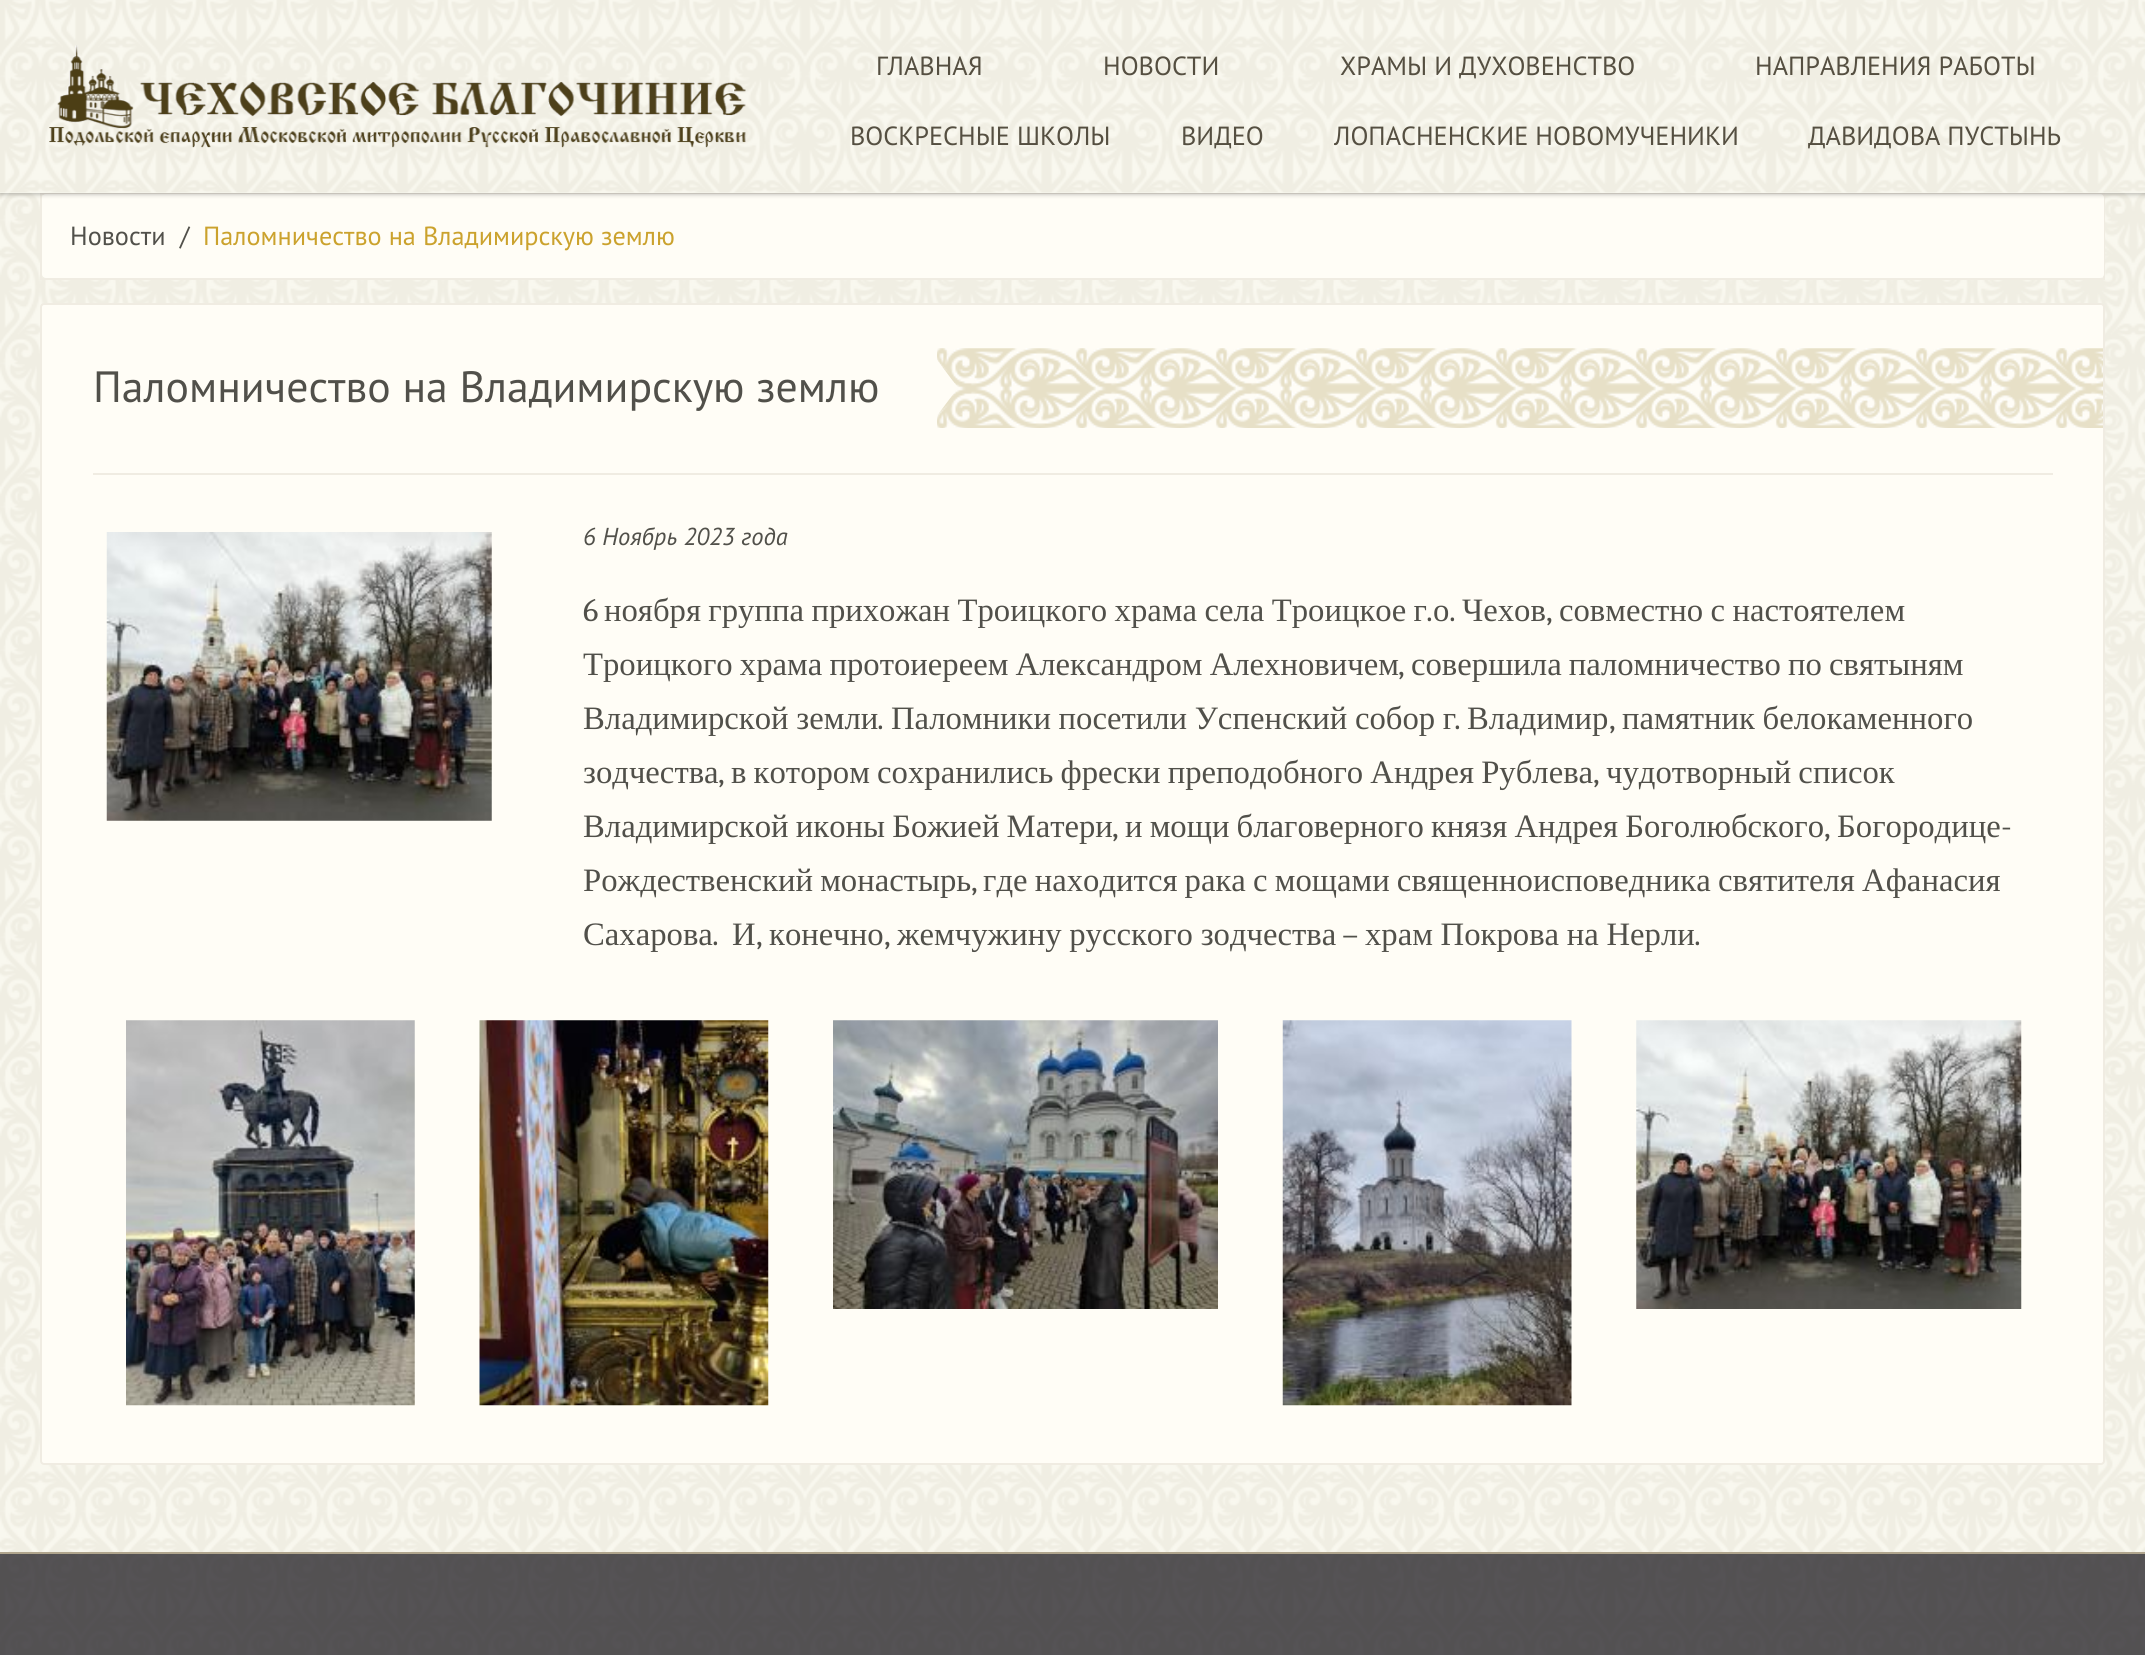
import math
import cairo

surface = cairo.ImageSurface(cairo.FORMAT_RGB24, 2145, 1655)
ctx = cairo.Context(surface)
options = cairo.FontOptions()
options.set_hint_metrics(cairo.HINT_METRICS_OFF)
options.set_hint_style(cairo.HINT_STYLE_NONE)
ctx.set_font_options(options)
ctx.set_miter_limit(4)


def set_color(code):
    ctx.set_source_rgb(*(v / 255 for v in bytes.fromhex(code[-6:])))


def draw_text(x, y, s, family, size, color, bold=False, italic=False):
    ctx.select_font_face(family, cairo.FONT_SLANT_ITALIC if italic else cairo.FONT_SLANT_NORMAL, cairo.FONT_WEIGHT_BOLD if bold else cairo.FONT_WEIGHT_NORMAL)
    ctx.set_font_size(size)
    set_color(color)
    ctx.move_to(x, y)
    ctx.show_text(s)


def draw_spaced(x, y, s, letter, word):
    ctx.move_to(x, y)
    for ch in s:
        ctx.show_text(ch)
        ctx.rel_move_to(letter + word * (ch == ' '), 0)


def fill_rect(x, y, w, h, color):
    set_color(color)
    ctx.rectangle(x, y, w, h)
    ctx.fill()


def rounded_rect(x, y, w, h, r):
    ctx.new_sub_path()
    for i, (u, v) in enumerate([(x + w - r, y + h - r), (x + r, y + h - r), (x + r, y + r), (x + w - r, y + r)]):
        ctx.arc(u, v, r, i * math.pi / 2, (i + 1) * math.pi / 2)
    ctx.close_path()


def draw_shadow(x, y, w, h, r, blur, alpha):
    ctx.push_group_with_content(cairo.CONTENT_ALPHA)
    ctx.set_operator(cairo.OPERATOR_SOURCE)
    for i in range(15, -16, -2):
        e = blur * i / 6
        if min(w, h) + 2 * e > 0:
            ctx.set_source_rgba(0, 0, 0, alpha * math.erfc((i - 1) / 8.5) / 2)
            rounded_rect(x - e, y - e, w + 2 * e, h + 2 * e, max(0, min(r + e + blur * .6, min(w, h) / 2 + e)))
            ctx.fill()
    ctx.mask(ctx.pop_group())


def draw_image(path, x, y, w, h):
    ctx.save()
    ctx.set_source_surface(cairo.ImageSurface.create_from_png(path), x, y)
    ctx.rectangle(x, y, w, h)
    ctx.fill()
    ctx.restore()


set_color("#ffffff")
ctx.paint()
draw_image("assets/img1.png", 0, 193, 2145, 1462)
ctx.rectangle(41, 194, 2063, 85)
set_color("#f0ece2")
ctx.stroke()
set_color("#fffdf6")
rounded_rect(42, 194, 2062, 84, 4)
ctx.fill()
set_color("#000000")
draw_shadow(0, 2, 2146, 192, 0, 2.5, 0.3)
fill_rect(0, 192, 2145, 1, "#f9f8ef")
draw_image("assets/img2.png", 0, 0, 2145, 193)
draw_image("assets/img3.png", 49, 45, 697, 103)
draw_text(876, 75, "ГЛАВНАЯ", "PT Sans", 26.25, "#554f41")
draw_text(1103, 75, "НОВОСТИ", "PT Sans", 26.25, "#554f41")
draw_text(1340, 75, "ХРАМЫ И ДУХОВЕНСТВО", "PT Sans", 26.25, "#554f41")
draw_text(1755, 75, "НАПРАВЛЕНИЯ РАБОТЫ", "PT Sans", 26.25, "#554f41")
draw_text(850, 145, "ВОСКРЕСНЫЕ ШКОЛЫ", "PT Sans", 26.25, "#554f41")
draw_text(1181, 145, "ВИДЕО", "PT Sans", 26.25, "#554f41")
draw_text(1334, 145, "ЛОПАСНЕНСКИЕ НОВОМУЧЕНИКИ", "PT Sans", 26.25, "#554f41")
draw_text(1808, 145, "ДАВИДОВА ПУСТЫНЬ", "PT Sans", 26.25, "#554f41")
draw_text(70, 245, "Новости", "PT Sans", 26.25, "#51504a")
draw_text(180, 245, "/", "PT Sans", 26.25, "#51504a")
draw_text(203, 245, "Паломничество на Владимирскую землю", "PT Sans", 26.25, "#cba22d")
set_color("#fffdf6")
rounded_rect(41, 304, 2063, 1160, 3)
ctx.fill_preserve()
set_color("#f0ece2")
ctx.stroke()
draw_text(93, 402, "Паломничество на Владимирскую землю", "PT Sans", 43.75, "#51504a")
draw_image("assets/img4.png", 937, 348, 1166, 80)
fill_rect(93, 473, 1960, 2, "#f0ece2")
draw_image("assets/img5.png", 106, 532, 386, 289)
draw_text(583, 545, "6 Ноябрь 2023 года", "PT Sans", 24.5, "#51504a", italic=True)
draw_text(583, 621, "6", "Caladea", 32.7, "#51504a")
ctx.select_font_face("Liberation Serif")
draw_spaced(604, 621, "ноября группа прихожан Троицкого храма села Троицкое г", 0, -0.75)
draw_text(1426, 621, ".", "Caladea", 32.7, "#51504a")
draw_text(1433, 621, "о", "Liberation Serif", 32.7, "#51504a")
draw_text(1449, 621, ".", "Caladea", 32.7, "#51504a")
draw_text(1462, 621, "Чехов", "Liberation Serif", 32.7, "#51504a")
draw_text(1546, 621, ",", "Caladea", 32.7, "#51504a")
ctx.select_font_face("Liberation Serif")
draw_spaced(1559, 621, "совместно с настоятелем", 0, -0.75)
draw_spaced(583, 675, "Троицкого храма протоиереем Александром Алехновичем", 0, -1)
draw_text(1398, 675, ",", "Caladea", 32.7, "#51504a")
ctx.select_font_face("Liberation Serif")
draw_spaced(1411, 675, "совершила паломничество по святыням", 0, -1)
draw_spaced(583, 729, "Владимирской земли", 0, -0.5)
draw_text(877, 729, ".", "Caladea", 32.7, "#51504a")
ctx.select_font_face("Liberation Serif")
draw_spaced(891, 729, "Паломники посетили Успенский собор г", 0, -0.5)
draw_text(1454, 729, ".", "Caladea", 32.7, "#51504a")
draw_text(1467, 729, "Владимир", "Liberation Serif", 32.7, "#51504a")
draw_text(1609, 729, ",", "Caladea", 32.7, "#51504a")
ctx.select_font_face("Liberation Serif")
draw_spaced(1622, 729, "памятник белокаменного", 0, -0.5)
draw_text(583, 783, "зодчества", "Liberation Serif", 32.7, "#51504a")
draw_text(718, 783, ",", "Caladea", 32.7, "#51504a")
ctx.select_font_face("Liberation Serif")
draw_spaced(731, 783, "в котором сохранились фрески преподобного Андрея Рублева", 0, -1)
draw_text(1593, 783, ",", "Caladea", 32.7, "#51504a")
ctx.select_font_face("Liberation Serif")
draw_spaced(1606, 783, "чудотворный список", 0, -1)
draw_spaced(583, 837, "Владимирской иконы Божией Матери", 0, -1)
draw_spaced(1125, 837, "и мощи благоверного князя Андрея Боголюбского", 0, -1)
draw_text(1837, 837, "Богородице", "Liberation Serif", 32.7, "#51504a")
draw_text(2001, 837, "-", "Caladea", 32.7, "#51504a")
draw_text(1112, 837, ",", "Caladea", 32.7, "#51504a")
draw_text(1824, 837, ",", "Caladea", 32.7, "#51504a")
ctx.select_font_face("Liberation Serif")
draw_spaced(583, 891, "Рождественский монастырь", 0, -1)
draw_text(971, 891, ",", "Caladea", 32.7, "#51504a")
ctx.select_font_face("Liberation Serif")
draw_spaced(983, 891, "где находится рака с мощами священноисповедника святителя Афанасия", 0, -1)
draw_text(583, 945, "Сахарова", "Liberation Serif", 32.7, "#51504a")
draw_text(732, 945, "И", "Liberation Serif", 32.7, "#51504a")
draw_text(769, 945, "конечно", "Liberation Serif", 32.7, "#51504a")
draw_spaced(897, 945, "жемчужину русского зодчества", 0, -0.5)
draw_text(1342, 945, "–", "Caladea", 32.7, "#51504a")
ctx.select_font_face("Liberation Serif")
draw_spaced(1365, 945, "храм Покрова на Нерли", 0, -0.5)
draw_text(712, 945, ".", "Caladea", 32.7, "#51504a")
draw_text(756, 945, ",", "Caladea", 32.7, "#51504a")
draw_text(884, 945, ",", "Caladea", 32.7, "#51504a")
draw_text(1694, 945, ".", "Caladea", 32.7, "#51504a")
draw_image("assets/img6.png", 126, 1020, 289, 386)
draw_image("assets/img7.png", 479, 1020, 290, 386)
draw_image("assets/img8.png", 833, 1020, 385, 289)
draw_image("assets/img9.png", 1282, 1020, 290, 386)
draw_image("assets/img10.png", 1636, 1020, 386, 289)
ctx.set_source_rgba(0.173, 0.165, 0.184, 0.8)
ctx.rectangle(0, 1554, 2145, 101)
ctx.fill()
fill_rect(0, 1552, 2145, 2, "#b0a58d")
surface.write_to_png("output.png")
